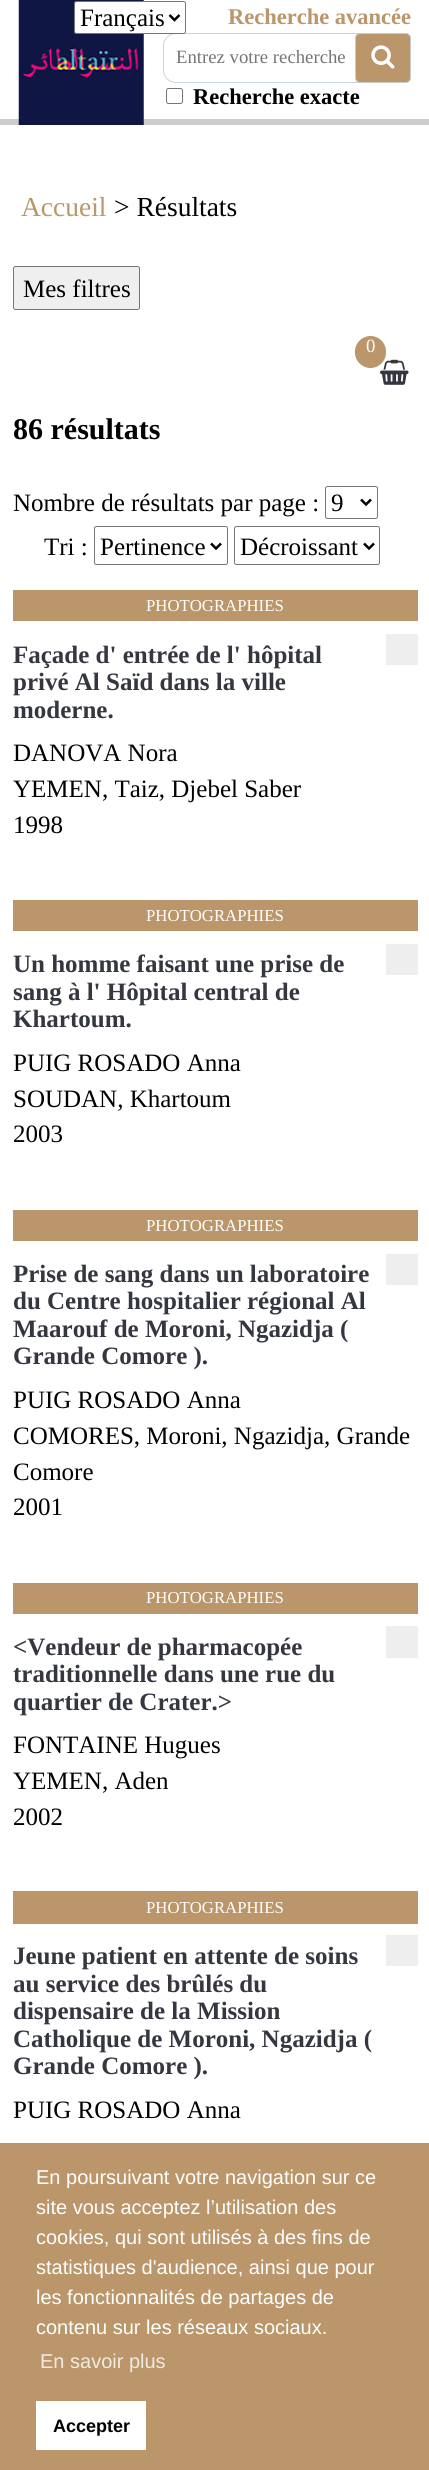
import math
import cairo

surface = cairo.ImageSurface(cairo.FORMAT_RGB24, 429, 2470)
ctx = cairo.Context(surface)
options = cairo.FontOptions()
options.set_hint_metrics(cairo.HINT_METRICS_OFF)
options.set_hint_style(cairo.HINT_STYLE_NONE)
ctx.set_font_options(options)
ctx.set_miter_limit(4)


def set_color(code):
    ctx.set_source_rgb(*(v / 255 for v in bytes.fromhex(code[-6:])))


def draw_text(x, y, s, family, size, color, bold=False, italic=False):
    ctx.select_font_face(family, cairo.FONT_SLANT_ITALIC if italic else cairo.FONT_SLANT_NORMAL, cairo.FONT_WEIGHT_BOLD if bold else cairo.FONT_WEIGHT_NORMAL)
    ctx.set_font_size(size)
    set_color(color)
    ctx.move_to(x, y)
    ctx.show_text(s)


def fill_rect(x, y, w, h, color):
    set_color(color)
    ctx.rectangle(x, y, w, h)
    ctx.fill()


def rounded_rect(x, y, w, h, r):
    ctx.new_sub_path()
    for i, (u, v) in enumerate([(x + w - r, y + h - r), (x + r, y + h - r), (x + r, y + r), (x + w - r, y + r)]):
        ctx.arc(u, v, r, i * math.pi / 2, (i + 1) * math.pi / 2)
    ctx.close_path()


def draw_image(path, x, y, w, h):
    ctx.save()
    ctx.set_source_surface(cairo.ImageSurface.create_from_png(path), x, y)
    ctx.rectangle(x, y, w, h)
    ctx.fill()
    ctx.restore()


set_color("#ffffff")
ctx.paint()
fill_rect(0, 119, 429, 6, "#cccccc")
draw_image("assets/img1.png", 18, 0, 126, 125)
draw_text(228, 24, "Recherche avancée", "Liberation Serif", 22.5, "#ba966a", bold=True)
rounded_rect(163.5, 33.5, 247, 49, 12.5)
set_color("#c9d3df")
ctx.set_line_width(1)
ctx.stroke()
draw_text(176, 63, "Entrez votre recherche", "Liberation Serif", 18.75, "#757575")
set_color("#ba966a")
rounded_rect(355.5, 33.5, 55, 49, 4.5)
ctx.fill_preserve()
set_color("#cccccc")
ctx.stroke()
draw_image("assets/img2.png", 371, 45, 24, 24)
rounded_rect(166.5, 88.5, 16, 15, 2)
set_color("#767676")
ctx.stroke()
draw_text(193, 104, "Recherche exacte", "Liberation Serif", 22.5, "#000000", bold=True)
set_color("#ffffff")
rounded_rect(74.5, 1.5, 111, 32, 2)
ctx.fill_preserve()
set_color("#767676")
ctx.stroke()
ctx.new_path()
ctx.move_to(169.5, 15)
ctx.line_to(174.5, 20)
ctx.line_to(179.5, 15)
set_color("#000000")
ctx.set_line_width(2.5)
ctx.stroke()
draw_text(80, 26, "Français", "Liberation Serif", 25, "#000000")
draw_text(21, 216, "Accueil", "Liberation Serif", 27.5, "#ba966a")
draw_text(114, 216, "> Résultats", "Liberation Serif", 27.5, "#000000")
set_color("#efefef")
rounded_rect(13.5, 266.5, 126, 43, 2)
ctx.fill_preserve()
set_color("#767676")
ctx.set_line_width(1)
ctx.stroke()
draw_text(23, 297, "Mes filtres", "Liberation Serif", 25, "#000000")
draw_image("assets/img3.png", 380, 359, 29, 26)
set_color("#ba966a")
rounded_rect(355, 336, 31, 32, 15.5)
ctx.fill()
draw_text(366, 352, "0", "Liberation Serif", 18.75, "#ffffff")
draw_text(13, 439, "86 résultats", "Liberation Serif", 30, "#000000", bold=True)
draw_text(13, 511, "Nombre de résultats par page :", "Liberation Serif", 25, "#000000")
rounded_rect(325.5, 486.5, 52, 32, 2)
set_color("#767676")
ctx.stroke()
ctx.new_path()
ctx.move_to(361, 499.5)
ctx.line_to(366, 504.5)
ctx.line_to(371, 499.5)
set_color("#000000")
ctx.set_line_width(2.5)
ctx.stroke()
draw_text(331, 511, "9", "Liberation Serif", 25, "#000000")
draw_text(44, 555, "Tri :", "Liberation Serif", 25, "#000000")
rounded_rect(94.5, 526.5, 133, 38, 2)
set_color("#767676")
ctx.set_line_width(1)
ctx.stroke()
ctx.new_path()
ctx.move_to(211, 543.5)
ctx.line_to(216, 548.5)
ctx.line_to(221, 543.5)
set_color("#000000")
ctx.set_line_width(2.5)
ctx.stroke()
draw_text(100, 555, "Pertinence", "Liberation Serif", 25, "#000000")
rounded_rect(234.5, 526.5, 145, 38, 2)
set_color("#767676")
ctx.set_line_width(1)
ctx.stroke()
ctx.new_path()
ctx.move_to(364, 543.5)
ctx.line_to(369, 548.5)
ctx.line_to(374, 543.5)
set_color("#000000")
ctx.set_line_width(2.5)
ctx.stroke()
draw_text(240, 555, "Décroissant", "Liberation Serif", 25, "#000000")
fill_rect(13, 590, 405, 31, "#ba966a")
draw_text(146, 611, "PHOTOGRAPHIES", "Liberation Serif", 16.75, "#ffffff")
draw_text(13, 761, "DANOVA Nora", "Liberation Serif", 25, "#000000")
draw_text(13, 797, "YEMEN, Taiz, Djebel Saber", "Liberation Serif", 25, "#000000")
draw_text(13, 833, "1998", "Liberation Serif", 25, "#000000")
fill_rect(386, 634, 32, 31, "#eeeeee")
draw_text(13, 663, "Façade d' entrée de l' hôpital", "Liberation Serif", 25, "#353740", bold=True)
draw_text(13, 690, "privé Al Saïd dans la ville", "Liberation Serif", 25, "#353740", bold=True)
draw_text(13, 718, "moderne.", "Liberation Serif", 25, "#353740", bold=True)
fill_rect(13, 900, 405, 31, "#ba966a")
draw_text(146, 921, "PHOTOGRAPHIES", "Liberation Serif", 16.75, "#ffffff")
draw_text(13, 1071, "PUIG ROSADO Anna", "Liberation Serif", 25, "#000000")
draw_text(13, 1107, "SOUDAN, Khartoum", "Liberation Serif", 25, "#000000")
draw_text(13, 1142, "2003", "Liberation Serif", 25, "#000000")
fill_rect(386, 944, 32, 31, "#eeeeee")
draw_text(13, 972, "Un homme faisant une prise de", "Liberation Serif", 25, "#353740", bold=True)
draw_text(13, 1000, "sang à l' Hôpital central de", "Liberation Serif", 25, "#353740", bold=True)
draw_text(13, 1027, "Khartoum.", "Liberation Serif", 25, "#353740", bold=True)
fill_rect(13, 1210, 405, 31, "#ba966a")
draw_text(146, 1231, "PHOTOGRAPHIES", "Liberation Serif", 16.75, "#ffffff")
draw_text(13, 1408, "PUIG ROSADO Anna", "Liberation Serif", 25, "#000000")
draw_text(13, 1444, "COMORES, Moroni, Ngazidja, Grande", "Liberation Serif", 25, "#000000")
draw_text(13, 1480, "Comore", "Liberation Serif", 25, "#000000")
draw_text(13, 1515, "2001", "Liberation Serif", 25, "#000000")
draw_text(13, 1282, "Prise de sang dans un laboratoire", "Liberation Serif", 25, "#353740", bold=True)
draw_text(13, 1309, "du Centre hospitalier régional Al", "Liberation Serif", 25, "#353740", bold=True)
draw_text(13, 1337, "Maarouf de Moroni, Ngazidja (", "Liberation Serif", 25, "#353740", bold=True)
draw_text(13, 1364, "Grande Comore ).", "Liberation Serif", 25, "#353740", bold=True)
fill_rect(386, 1254, 32, 31, "#eeeeee")
fill_rect(13, 1583, 405, 31, "#ba966a")
draw_text(146, 1603, "PHOTOGRAPHIES", "Liberation Serif", 16.75, "#ffffff")
draw_text(13, 1753, "FONTAINE Hugues", "Liberation Serif", 25, "#000000")
draw_text(13, 1789, "YEMEN, Aden", "Liberation Serif", 25, "#000000")
draw_text(13, 1825, "2002", "Liberation Serif", 25, "#000000")
fill_rect(386, 1626, 32, 32, "#eeeeee")
draw_text(13, 1655, "<Vendeur de pharmacopée", "Liberation Serif", 25, "#353740", bold=True)
draw_text(13, 1682, "traditionnelle dans une rue du", "Liberation Serif", 25, "#353740", bold=True)
draw_text(13, 1710, "quartier de Crater.>", "Liberation Serif", 25, "#353740", bold=True)
fill_rect(13, 1891, 405, 33, "#ba966a")
draw_text(146, 1913, "PHOTOGRAPHIES", "Liberation Serif", 16.75, "#ffffff")
draw_text(13, 2118, "PUIG ROSADO Anna", "Liberation Serif", 25, "#000000")
fill_rect(386, 1935, 32, 31, "#eeeeee")
draw_text(13, 1964, "Jeune patient en attente de soins", "Liberation Serif", 25, "#353740", bold=True)
draw_text(13, 1992, "au service des brûlés du", "Liberation Serif", 25, "#353740", bold=True)
draw_text(13, 2019, "dispensaire de la Mission", "Liberation Serif", 25, "#353740", bold=True)
draw_text(13, 2047, "Catholique de Moroni, Ngazidja (", "Liberation Serif", 25, "#353740", bold=True)
draw_text(13, 2074, "Grande Comore ).", "Liberation Serif", 25, "#353740", bold=True)
fill_rect(0, 2143, 429, 327, "#ba966a")
draw_text(36, 2184, "En poursuivant votre navigation sur ce", "Liberation Sans", 20, "#ffffff")
draw_text(36, 2214, "site vous acceptez l’utilisation des", "Liberation Sans", 20, "#ffffff")
draw_text(36, 2244, "cookies, qui sont utilisés à des fins de", "Liberation Sans", 20, "#ffffff")
draw_text(36, 2274, "statistiques d'audience, ainsi que pour", "Liberation Sans", 20, "#ffffff")
draw_text(36, 2304, "les fonctionnalités de partages de", "Liberation Sans", 20, "#ffffff")
draw_text(36, 2334, "contenu sur les réseaux sociaux.", "Liberation Sans", 20, "#ffffff")
draw_text(40, 2368, "En savoir plus", "Liberation Sans", 20, "#f1eae1")
fill_rect(36, 2401, 110, 49, "#ffffff")
draw_text(53, 2432, "Accepter", "Liberation Sans", 18, "#000000", bold=True)
surface.write_to_png("output.png")
